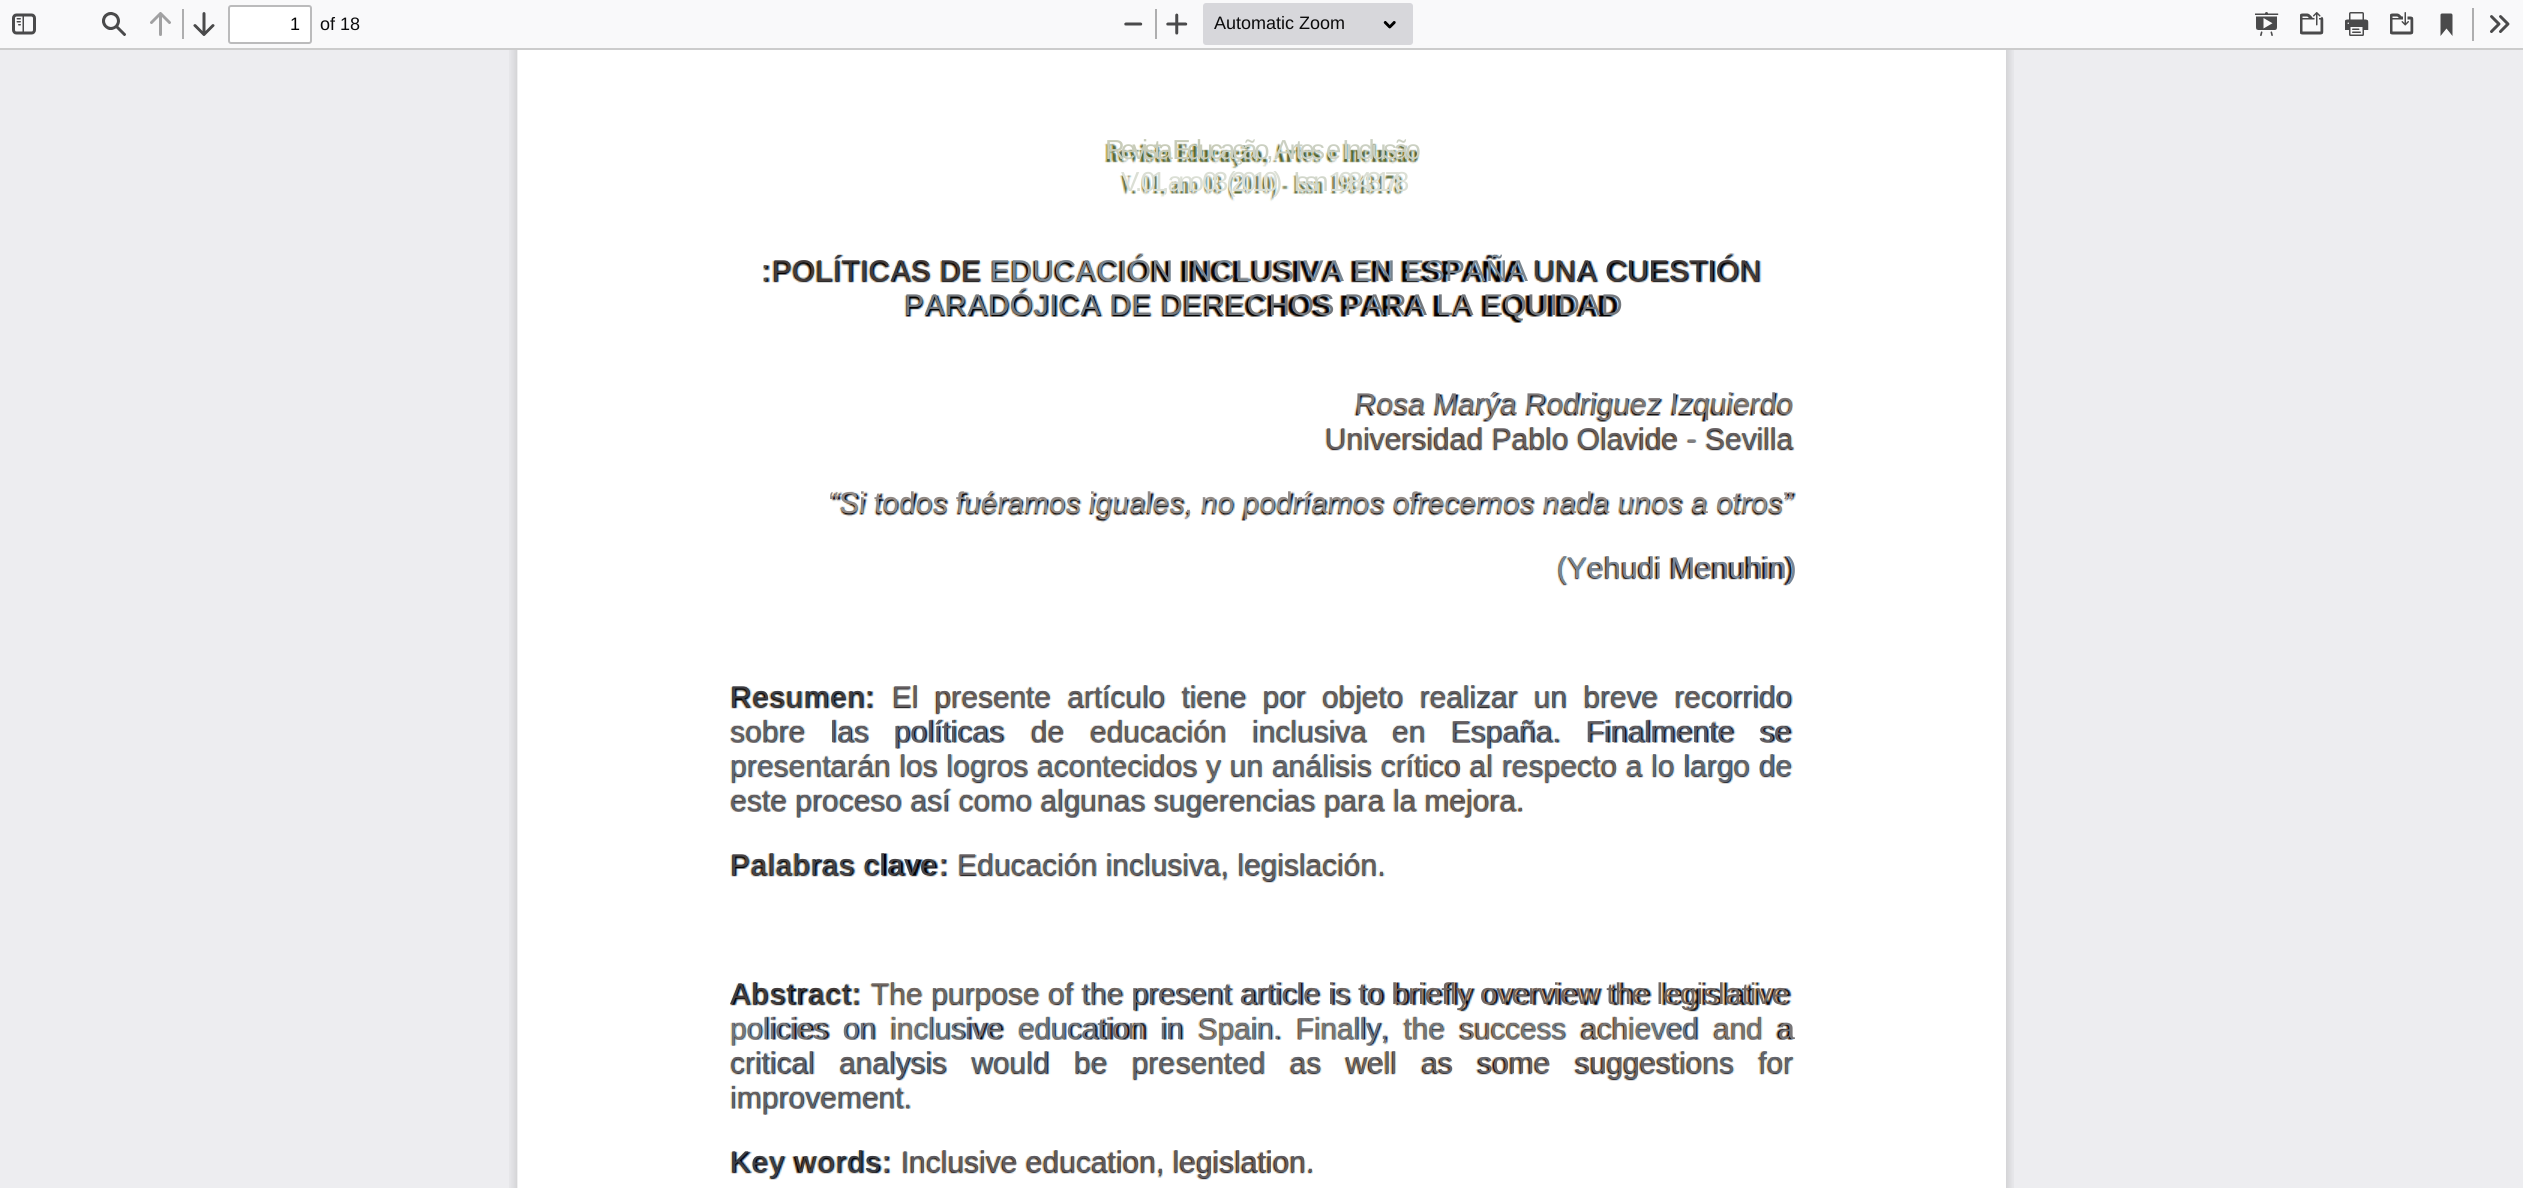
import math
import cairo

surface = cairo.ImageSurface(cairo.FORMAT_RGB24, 2523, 1188)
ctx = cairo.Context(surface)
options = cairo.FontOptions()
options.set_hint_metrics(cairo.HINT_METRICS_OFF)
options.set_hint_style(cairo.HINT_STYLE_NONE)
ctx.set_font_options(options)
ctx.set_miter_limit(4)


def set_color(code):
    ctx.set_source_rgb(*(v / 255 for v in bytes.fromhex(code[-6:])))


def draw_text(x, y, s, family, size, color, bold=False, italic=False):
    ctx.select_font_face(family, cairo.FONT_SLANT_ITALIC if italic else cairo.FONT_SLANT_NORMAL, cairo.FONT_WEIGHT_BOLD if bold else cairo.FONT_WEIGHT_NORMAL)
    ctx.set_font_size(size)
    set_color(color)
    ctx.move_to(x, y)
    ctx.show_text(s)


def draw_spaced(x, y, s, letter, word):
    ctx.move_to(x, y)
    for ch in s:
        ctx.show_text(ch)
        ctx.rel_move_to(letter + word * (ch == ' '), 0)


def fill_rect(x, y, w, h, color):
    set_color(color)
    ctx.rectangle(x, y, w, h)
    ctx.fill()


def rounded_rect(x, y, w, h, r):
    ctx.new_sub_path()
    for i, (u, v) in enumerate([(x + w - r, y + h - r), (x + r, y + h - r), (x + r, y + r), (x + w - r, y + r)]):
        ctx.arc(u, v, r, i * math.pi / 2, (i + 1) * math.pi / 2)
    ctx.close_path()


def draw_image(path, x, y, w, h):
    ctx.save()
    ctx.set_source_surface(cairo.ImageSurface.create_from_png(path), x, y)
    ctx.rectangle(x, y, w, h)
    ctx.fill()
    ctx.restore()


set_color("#ededf0")
ctx.paint()
fill_rect(0, 48, 2523, 2, "#cccccc")
fill_rect(0, 0, 2523, 48, "#f9f9fa")
draw_image("assets/img1.png", 12, 13, 24, 22)
draw_image("assets/img2.png", 102, 12, 24, 24)
draw_image("assets/img3.png", 150, 12, 21, 24)
fill_rect(182, 9, 2, 30, "#aeaeaf")
draw_image("assets/img4.png", 193, 12, 22, 24)
set_color("#ffffff")
rounded_rect(229, 6, 82, 37, 2)
ctx.fill_preserve()
set_color("#bbbbbc")
ctx.stroke()
draw_text(290, 30, "1", "Liberation Sans", 18, "#060606")
draw_text(320, 30, "of 18", "Liberation Sans", 18, "#0c0c0d")
draw_image("assets/img5.png", 1124, 22, 19, 4)
fill_rect(1155, 9, 2, 30, "#aeaeaf")
draw_image("assets/img6.png", 1166, 13, 22, 22)
set_color("#d7d7db")
rounded_rect(1203, 3, 210, 42, 3)
ctx.fill()
draw_text(1214, 29, "Automatic Zoom", "Liberation Sans", 18, "#0c0c0d")
draw_image("assets/img7.png", 1383, 21, 13, 8)
draw_image("assets/img8.png", 2255, 12, 24, 24)
draw_image("assets/img9.png", 2300, 12, 24, 23)
draw_image("assets/img10.png", 2345, 12, 24, 24)
draw_image("assets/img11.png", 2390, 12, 24, 23)
draw_image("assets/img12.png", 2440, 13, 13, 23)
fill_rect(2472, 8, 2, 33, "#aeaeaf")
draw_image("assets/img13.png", 2490, 15, 20, 18)
draw_image("assets/img14.png", 509, 50, 1505, 1138)
draw_image("assets/img15.png", 517, 50, 1489, 1138)
ctx.set_font_size(27.5)
set_color("#c8ccb9")
draw_spaced(1105, 159, "Revista Educ", -4, 0)
set_color("#cbd0c2")
draw_spaced(1220, 159, "ação, Artes e Inclusão", -3.4, 0)
set_color("#dbdfd5")
draw_spaced(1121, 191, "V. 01, ano 03 (2010)", -4.7, 0)
set_color("#d2d7cb")
draw_spaced(1293, 191, "Issn", -5, 0)
set_color("#dbdfd5")
draw_spaced(1329, 191, "19843178", -6, 0)
draw_text(761, 281, ":", "Liberation Sans", 30, "#635343")
set_color("#433b3a")
draw_spaced(772, 281, "POLÍTICAS DE", 0.25, 0)
set_color("#78848e")
draw_spaced(990, 281, "EDUCACIÓN INCLUSIVA EN ESPAÑA", 0.4, 0)
set_color("#433b3a")
draw_spaced(1533, 281, "UNA CUESTIÓN", 0.1, 0)
set_color("#74787d")
draw_spaced(904, 315, "PARADÓJICA DE DERECHOS PARA LA EQUIDAD", 0.5, 0)
draw_text(1355, 414, "Rosa Marýa Rodriguez Izquierdo", "Liberation Sans", 30, "#7d7777")
draw_text(1325, 449, "Universidad Pablo Olavide", "Liberation Sans", 30, "#645e61")
draw_text(1687, 449, "-", "Liberation Sans", 30, "#807f82")
draw_text(1705, 449, "Sevilla", "Liberation Sans", 30, "#645e61")
draw_text(829, 513, "“Si todos fuéramos iguales, no podríamos ofrecernos nada unos a otros”", "Liberation Sans", 30, "#928a86")
set_color("#768597")
draw_spaced(1557, 578, "(Yehudi Menuhin)", 0.2, 0)
set_color("#3d3d43")
draw_spaced(730, 707, "Resumen", 1, 0)
draw_text(865, 707, ":", "Liberation Sans", 30, "#544539")
set_color("#645e61")
draw_spaced(892, 707, "El  pre", -0.1, 0)
draw_spaced(978, 707, "sente  artículo  tiene  por  objeto  realizar  un  breve  recorrido", -0.1, 0)
draw_text(730, 742, "sobre   las   políticas", "Liberation Sans", 30, "#645e61")
set_color("#5e5b62")
draw_spaced(1031, 742, "de", 0.1, 0)
draw_text(1090, 742, "educación   inclusiva   en   España.   Finalmente   se", "Liberation Sans", 30, "#645e61")
set_color("#63656e")
draw_spaced(730, 776, "presentarán los logros acontecidos y un análisis crítico al respecto a lo largo de", 0.08, 0)
draw_text(730, 811, "este proceso así como algunas sugerencias par", "Liberation Sans", 30, "#645e61")
draw_text(1368, 811, "a la mejora.", "Liberation Sans", 30, "#645e61")
set_color("#474345")
draw_spaced(730, 875, "Palabras clave", 0.75, 0)
draw_text(939, 875, ":", "Liberation Sans", 30, "#6f594b")
draw_text(957, 875, "Educación inclusiva, legislación.", "Liberation Sans", 30, "#645e61")
set_color("#433b3a")
draw_spaced(730, 1004, "Abstract", 1.5, 0)
draw_text(852, 1004, ":", "Liberation Sans", 30, "#5d4e3f")
draw_text(871, 1004, "The purpose of the present article is to briefly overview the legislative", "Liberation Sans", 30, "#716661")
set_color("#777577")
draw_spaced(730, 1039, "policies  on  inclusive  education  in  Spain.  Finally,  the  success  achieved  and  a", -0.43, 0)
set_color("#645e61")
draw_spaced(730, 1073, "critical   analysis   would   be   pre", -0.1, 0)
set_color("#63656e")
draw_spaced(1176, 1073, "sented   as   well   as   some   suggestions   for", -0.13, 0)
draw_text(730, 1108, "improvement.", "Liberation Sans", 30, "#645e61")
set_color("#3d3d43")
draw_spaced(730, 1172, "Key words", 1.25, 0)
draw_text(882, 1172, ":", "Liberation Sans", 30, "#6f594b")
draw_text(901, 1172, "Inclusive education, legislation.", "Liberation Sans", 30, "#5e5b62")
surface.write_to_png("output.png")
